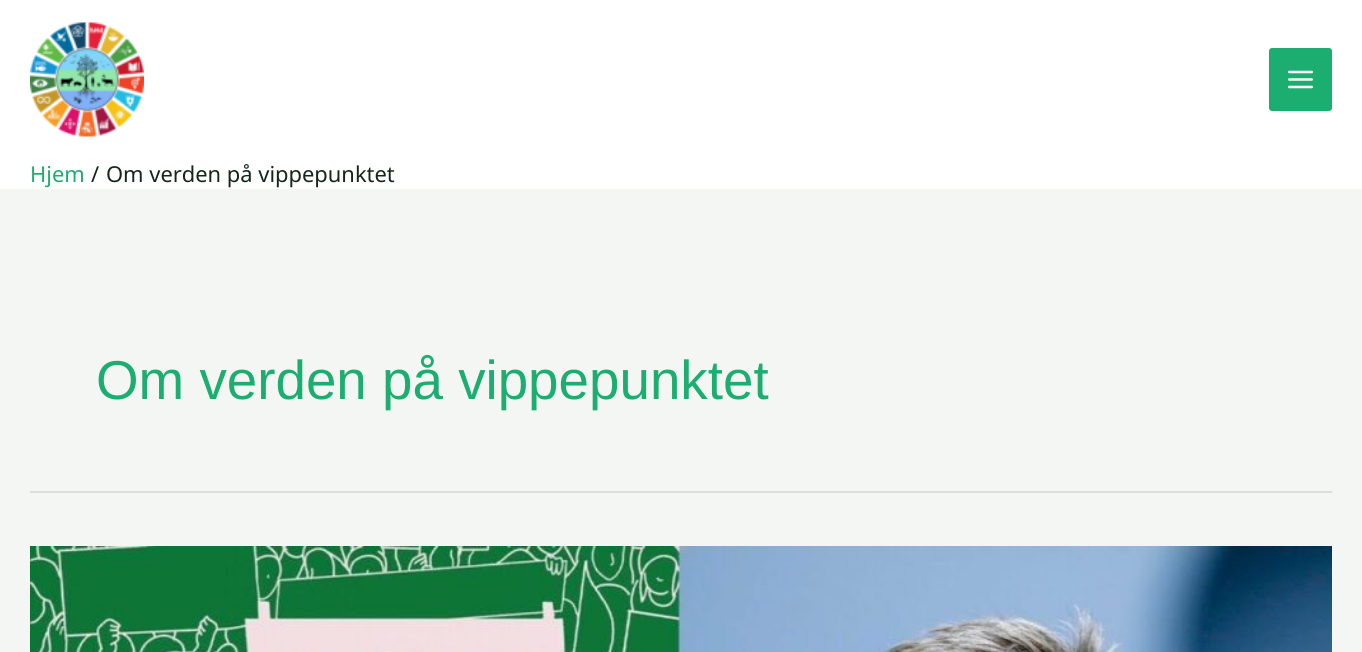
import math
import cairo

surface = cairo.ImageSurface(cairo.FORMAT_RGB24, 1362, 652)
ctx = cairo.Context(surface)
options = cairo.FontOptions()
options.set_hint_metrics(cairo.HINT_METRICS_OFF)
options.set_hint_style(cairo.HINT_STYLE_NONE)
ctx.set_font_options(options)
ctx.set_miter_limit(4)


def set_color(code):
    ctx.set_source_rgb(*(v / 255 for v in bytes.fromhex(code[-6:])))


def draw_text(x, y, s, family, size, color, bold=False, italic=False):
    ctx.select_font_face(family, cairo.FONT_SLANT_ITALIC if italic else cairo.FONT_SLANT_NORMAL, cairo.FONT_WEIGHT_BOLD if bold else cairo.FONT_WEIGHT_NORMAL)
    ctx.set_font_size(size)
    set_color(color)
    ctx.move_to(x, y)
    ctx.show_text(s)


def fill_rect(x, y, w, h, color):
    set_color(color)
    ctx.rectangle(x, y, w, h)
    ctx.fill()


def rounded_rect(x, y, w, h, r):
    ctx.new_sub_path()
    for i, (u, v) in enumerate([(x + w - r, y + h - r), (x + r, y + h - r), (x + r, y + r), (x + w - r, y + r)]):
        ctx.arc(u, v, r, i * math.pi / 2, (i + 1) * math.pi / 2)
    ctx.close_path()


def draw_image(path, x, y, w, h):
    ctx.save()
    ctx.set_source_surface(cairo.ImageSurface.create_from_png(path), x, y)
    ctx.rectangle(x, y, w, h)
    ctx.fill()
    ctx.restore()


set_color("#f4f6f4")
ctx.paint()
fill_rect(0, 0, 1362, 189, "#ffffff")
draw_image("assets/img1.png", 30, 22, 114, 115)
set_color("#1bae70")
rounded_rect(1269, 48, 63, 63, 3)
ctx.fill()
draw_image("assets/img2.png", 1288, 70, 25, 19)
draw_text(30, 182, "Hjem", "Noto Sans", 21.9, "#1bae70")
draw_text(91, 182, "/", "Noto Sans", 21.9, "#14261c")
draw_text(106, 182, "Om verden på vippepunktet", "Noto Sans", 21.9, "#14261c")
fill_rect(30, 491, 1302, 2, "#dddddd")
draw_text(96, 399, "Om verden på vippepunktet", "Liberation Sans", 54.75, "#1bae70")
draw_image("assets/img3.png", 30, 546, 1302, 106)
surface.write_to_png("output.png")
